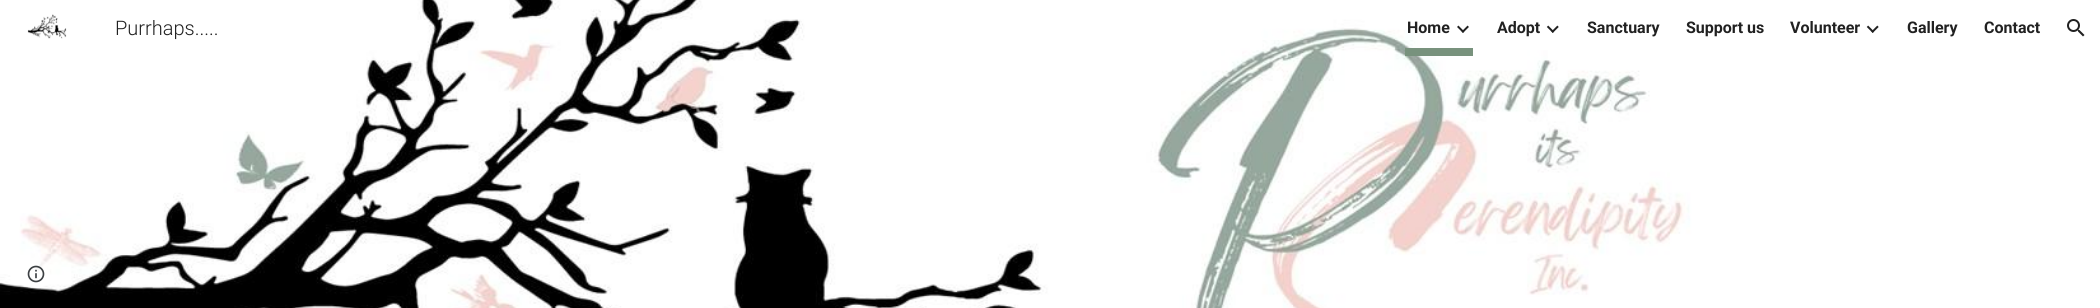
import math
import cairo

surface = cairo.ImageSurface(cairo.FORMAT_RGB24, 2100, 308)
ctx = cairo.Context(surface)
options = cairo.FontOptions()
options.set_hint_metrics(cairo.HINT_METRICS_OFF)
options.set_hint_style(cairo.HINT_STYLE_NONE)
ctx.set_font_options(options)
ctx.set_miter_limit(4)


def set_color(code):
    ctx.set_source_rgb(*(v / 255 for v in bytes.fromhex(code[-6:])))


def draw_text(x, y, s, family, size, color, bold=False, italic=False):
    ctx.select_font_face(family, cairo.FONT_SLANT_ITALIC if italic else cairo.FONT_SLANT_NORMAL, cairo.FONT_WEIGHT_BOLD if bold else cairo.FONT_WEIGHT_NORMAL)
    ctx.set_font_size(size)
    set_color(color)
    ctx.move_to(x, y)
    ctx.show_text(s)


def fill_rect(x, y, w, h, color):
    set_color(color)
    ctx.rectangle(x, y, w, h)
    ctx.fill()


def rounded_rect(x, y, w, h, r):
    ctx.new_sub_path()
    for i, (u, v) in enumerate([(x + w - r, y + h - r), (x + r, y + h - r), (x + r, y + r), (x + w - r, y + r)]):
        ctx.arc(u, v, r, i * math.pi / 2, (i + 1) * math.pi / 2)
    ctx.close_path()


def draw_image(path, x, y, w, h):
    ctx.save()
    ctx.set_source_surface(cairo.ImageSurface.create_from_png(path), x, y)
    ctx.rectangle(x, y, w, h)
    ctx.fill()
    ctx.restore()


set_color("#ffffff")
ctx.paint()
draw_image("assets/img1.png", 0, 0, 2100, 308)
draw_image("assets/img2.png", 27, 14, 40, 25)
draw_text(115, 35, "Purrhaps.....", "Roboto Light", 20, "#212121")
fill_rect(1405, 48, 68, 8, "#78927d")
draw_text(1407, 33, "Home", "Roboto", 16, "#212121", bold=True)
draw_image("assets/img3.png", 1457, 25, 12, 8)
draw_text(1497, 33, "Adopt", "Roboto", 16, "#212121", bold=True)
draw_image("assets/img4.png", 1546, 25, 13, 8)
draw_text(1587, 33, "Sanctuary", "Roboto", 16, "#212121", bold=True)
draw_text(1686, 33, "Support us", "Roboto", 16, "#212121", bold=True)
draw_text(1790, 33, "Volunteer", "Roboto", 16, "#212121", bold=True)
draw_image("assets/img5.png", 1866, 25, 13, 8)
draw_text(1907, 33, "Gallery", "Roboto", 16, "#212121", bold=True)
draw_text(1984, 33, "Contact", "Roboto", 16, "#212121", bold=True)
draw_image("assets/img6.png", 2067, 19, 18, 18)
ctx.set_source_rgba(1, 1, 1, 0.5)
rounded_rect(22, 260, 28, 28, 10)
ctx.fill()
draw_image("assets/img7.png", 27, 265, 18, 18)
surface.write_to_png("output.png")
